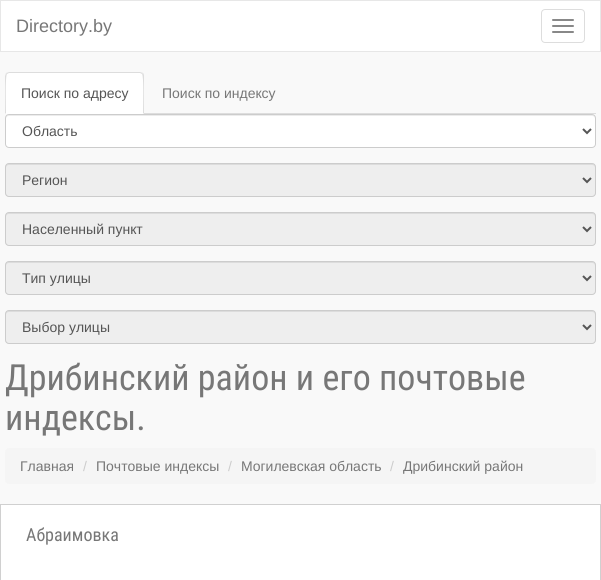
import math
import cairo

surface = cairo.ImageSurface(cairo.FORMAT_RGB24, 601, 580)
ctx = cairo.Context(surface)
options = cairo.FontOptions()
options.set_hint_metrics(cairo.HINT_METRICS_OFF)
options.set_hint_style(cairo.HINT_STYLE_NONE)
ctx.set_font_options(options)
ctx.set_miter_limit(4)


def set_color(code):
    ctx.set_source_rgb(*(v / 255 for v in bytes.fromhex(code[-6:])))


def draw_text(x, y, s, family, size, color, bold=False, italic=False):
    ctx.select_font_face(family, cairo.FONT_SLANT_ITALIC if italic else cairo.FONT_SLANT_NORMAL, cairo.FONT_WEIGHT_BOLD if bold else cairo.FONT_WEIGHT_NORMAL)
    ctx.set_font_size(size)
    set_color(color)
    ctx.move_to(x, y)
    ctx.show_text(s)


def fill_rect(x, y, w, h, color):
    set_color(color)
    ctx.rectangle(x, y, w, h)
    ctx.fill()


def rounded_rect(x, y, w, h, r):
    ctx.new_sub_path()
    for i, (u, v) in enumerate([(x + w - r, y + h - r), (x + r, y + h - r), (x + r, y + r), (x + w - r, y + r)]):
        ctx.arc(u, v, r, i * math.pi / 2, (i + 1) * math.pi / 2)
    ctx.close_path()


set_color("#f9f9f9")
ctx.paint()
set_color("#ffffff")
ctx.rectangle(0.5, 0.5, 600, 51)
ctx.fill_preserve()
set_color("#e7e7e7")
ctx.set_line_width(1)
ctx.stroke()
draw_text(16, 32, "Directory.by", "Liberation Sans", 18, "#777777")
rounded_rect(541.5, 9.5, 43, 33, 3.5)
set_color("#dddddd")
ctx.stroke()
set_color("#888888")
rounded_rect(552, 19, 22, 2, 1)
ctx.fill()
rounded_rect(552, 25, 22, 2, 1)
ctx.fill()
rounded_rect(552, 31, 22, 2, 1)
ctx.fill()
fill_rect(144, 113, 452, 1, "#dddddd")
set_color("#ffffff")
ctx.new_path()
ctx.move_to(9, 72)
ctx.line_to(140, 72)
ctx.curve_to(142, 72, 144, 74, 144, 76)
ctx.line_to(144, 114)
ctx.line_to(5, 114)
ctx.line_to(5, 76)
ctx.curve_to(5, 74, 7, 72, 9, 72)
ctx.close_path()
ctx.fill()
set_color("#dddddd")
ctx.new_path()
ctx.move_to(9, 72)
ctx.line_to(6, 73)
ctx.line_to(7, 74)
ctx.line_to(9, 73)
ctx.line_to(140, 73)
ctx.line_to(142, 74)
ctx.line_to(143, 73)
ctx.line_to(140, 72)
ctx.close_path()
ctx.fill()
ctx.new_path()
ctx.move_to(144, 114)
ctx.line_to(144, 76)
ctx.curve_to(144, 75, 144, 74, 143, 73)
ctx.line_to(142, 74)
ctx.curve_to(144, 76, 143, 108, 143, 113)
ctx.close_path()
ctx.fill()
ctx.new_path()
ctx.move_to(5, 114)
ctx.line_to(6, 113)
ctx.curve_to(6, 108, 5, 76, 7, 74)
ctx.line_to(6, 73)
ctx.line_to(5, 76)
ctx.close_path()
ctx.fill()
draw_text(21, 98, "Поиск по адресу", "Liberation Sans", 14, "#555555")
draw_text(162, 98, "Поиск по индексу", "Liberation Sans", 14, "#777777")
set_color("#ffffff")
rounded_rect(5, 114, 591, 34, 4)
ctx.fill()
set_color("#ececec")
ctx.new_path()
ctx.move_to(9, 116)
ctx.line_to(592, 116)
ctx.curve_to(594, 116, 595, 117, 595, 119)
ctx.line_to(595, 118)
ctx.curve_to(595, 116, 594, 115, 592, 115)
ctx.line_to(9, 115)
ctx.curve_to(7, 115, 6, 116, 6, 118)
ctx.line_to(6, 119)
ctx.curve_to(6, 117, 7, 116, 9, 116)
ctx.close_path()
ctx.fill()
rounded_rect(5.5, 114.5, 590, 33, 3.5)
set_color("#cccccc")
ctx.stroke()
ctx.new_path()
ctx.move_to(583, 129)
ctx.line_to(587, 133)
ctx.line_to(591, 129)
set_color("#555555")
ctx.set_line_width(2)
ctx.stroke()
draw_text(22, 136, "Область", "Liberation Sans", 14, "#555555")
set_color("#eeeeee")
rounded_rect(5, 163, 591, 34, 4)
ctx.fill()
set_color("#dcdcdc")
ctx.new_path()
ctx.move_to(9, 165)
ctx.line_to(592, 165)
ctx.curve_to(594, 165, 595, 166, 595, 168)
ctx.line_to(595, 167)
ctx.curve_to(595, 165, 594, 164, 592, 164)
ctx.line_to(9, 164)
ctx.curve_to(7, 164, 6, 165, 6, 167)
ctx.line_to(6, 168)
ctx.curve_to(6, 166, 7, 165, 9, 165)
ctx.close_path()
ctx.fill()
rounded_rect(5.5, 163.5, 590, 33, 3.5)
set_color("#cccccc")
ctx.set_line_width(1)
ctx.stroke()
ctx.new_path()
ctx.move_to(583, 178)
ctx.line_to(587, 182)
ctx.line_to(591, 178)
set_color("#555555")
ctx.set_line_width(2)
ctx.stroke()
draw_text(22, 185, "Регион", "Liberation Sans", 14, "#555555")
set_color("#eeeeee")
rounded_rect(5, 212, 591, 34, 4)
ctx.fill()
set_color("#dcdcdc")
ctx.new_path()
ctx.move_to(9, 214)
ctx.line_to(592, 214)
ctx.curve_to(594, 214, 595, 215, 595, 217)
ctx.line_to(595, 216)
ctx.curve_to(595, 214, 594, 213, 592, 213)
ctx.line_to(9, 213)
ctx.curve_to(7, 213, 6, 214, 6, 216)
ctx.line_to(6, 217)
ctx.curve_to(6, 215, 7, 214, 9, 214)
ctx.close_path()
ctx.fill()
rounded_rect(5.5, 212.5, 590, 33, 3.5)
set_color("#cccccc")
ctx.set_line_width(1)
ctx.stroke()
ctx.new_path()
ctx.move_to(583, 227)
ctx.line_to(587, 231)
ctx.line_to(591, 227)
set_color("#555555")
ctx.set_line_width(2)
ctx.stroke()
draw_text(22, 234, "Населенный пункт", "Liberation Sans", 14, "#555555")
set_color("#eeeeee")
rounded_rect(5, 261, 591, 34, 4)
ctx.fill()
set_color("#dcdcdc")
ctx.new_path()
ctx.move_to(9, 263)
ctx.line_to(592, 263)
ctx.curve_to(594, 263, 595, 264, 595, 266)
ctx.line_to(595, 265)
ctx.curve_to(595, 263, 594, 262, 592, 262)
ctx.line_to(9, 262)
ctx.curve_to(7, 262, 6, 263, 6, 265)
ctx.line_to(6, 266)
ctx.curve_to(6, 264, 7, 263, 9, 263)
ctx.close_path()
ctx.fill()
rounded_rect(5.5, 261.5, 590, 33, 3.5)
set_color("#cccccc")
ctx.set_line_width(1)
ctx.stroke()
ctx.new_path()
ctx.move_to(583, 276)
ctx.line_to(587, 280)
ctx.line_to(591, 276)
set_color("#555555")
ctx.set_line_width(2)
ctx.stroke()
draw_text(22, 283, "Тип улицы", "Liberation Sans", 14, "#555555")
set_color("#eeeeee")
rounded_rect(5, 310, 591, 34, 4)
ctx.fill()
set_color("#dcdcdc")
ctx.new_path()
ctx.move_to(9, 312)
ctx.line_to(592, 312)
ctx.curve_to(594, 312, 595, 313, 595, 315)
ctx.line_to(595, 314)
ctx.curve_to(595, 312, 594, 311, 592, 311)
ctx.line_to(9, 311)
ctx.curve_to(7, 311, 6, 312, 6, 314)
ctx.line_to(6, 315)
ctx.curve_to(6, 313, 7, 312, 9, 312)
ctx.close_path()
ctx.fill()
rounded_rect(5.5, 310.5, 590, 33, 3.5)
set_color("#cccccc")
ctx.set_line_width(1)
ctx.stroke()
ctx.new_path()
ctx.move_to(583, 325)
ctx.line_to(587, 329)
ctx.line_to(591, 325)
set_color("#555555")
ctx.set_line_width(2)
ctx.stroke()
draw_text(22, 332, "Выбор улицы", "Liberation Sans", 14, "#555555")
draw_text(5, 390, "Дрибинский район и его почтовые", "Roboto Condensed", 36, "#777777")
draw_text(5, 430, "индексы.", "Roboto Condensed", 36, "#777777")
set_color("#f5f5f5")
rounded_rect(5, 448, 591, 36, 4)
ctx.fill()
draw_text(20, 471, "Главная", "Liberation Sans", 14, "#777777")
draw_text(83, 471, "/", "Liberation Sans", 14, "#cccccc")
draw_text(96, 471, "Почтовые индексы", "Liberation Sans", 14, "#777777")
draw_text(228, 471, "/", "Liberation Sans", 14, "#cccccc")
draw_text(241, 471, "Могилевская область", "Liberation Sans", 14, "#777777")
draw_text(390, 471, "/", "Liberation Sans", 14, "#cccccc")
draw_text(403, 471, "Дрибинский район", "Liberation Sans", 14, "#777777")
set_color("#ffffff")
ctx.rectangle(0.5, 504.5, 600, 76)
ctx.fill_preserve()
set_color("#d0d0d0")
ctx.set_line_width(1)
ctx.stroke()
draw_text(26, 541, "Абраимовка", "Roboto Condensed", 18, "#777777")
surface.write_to_png("output.png")
